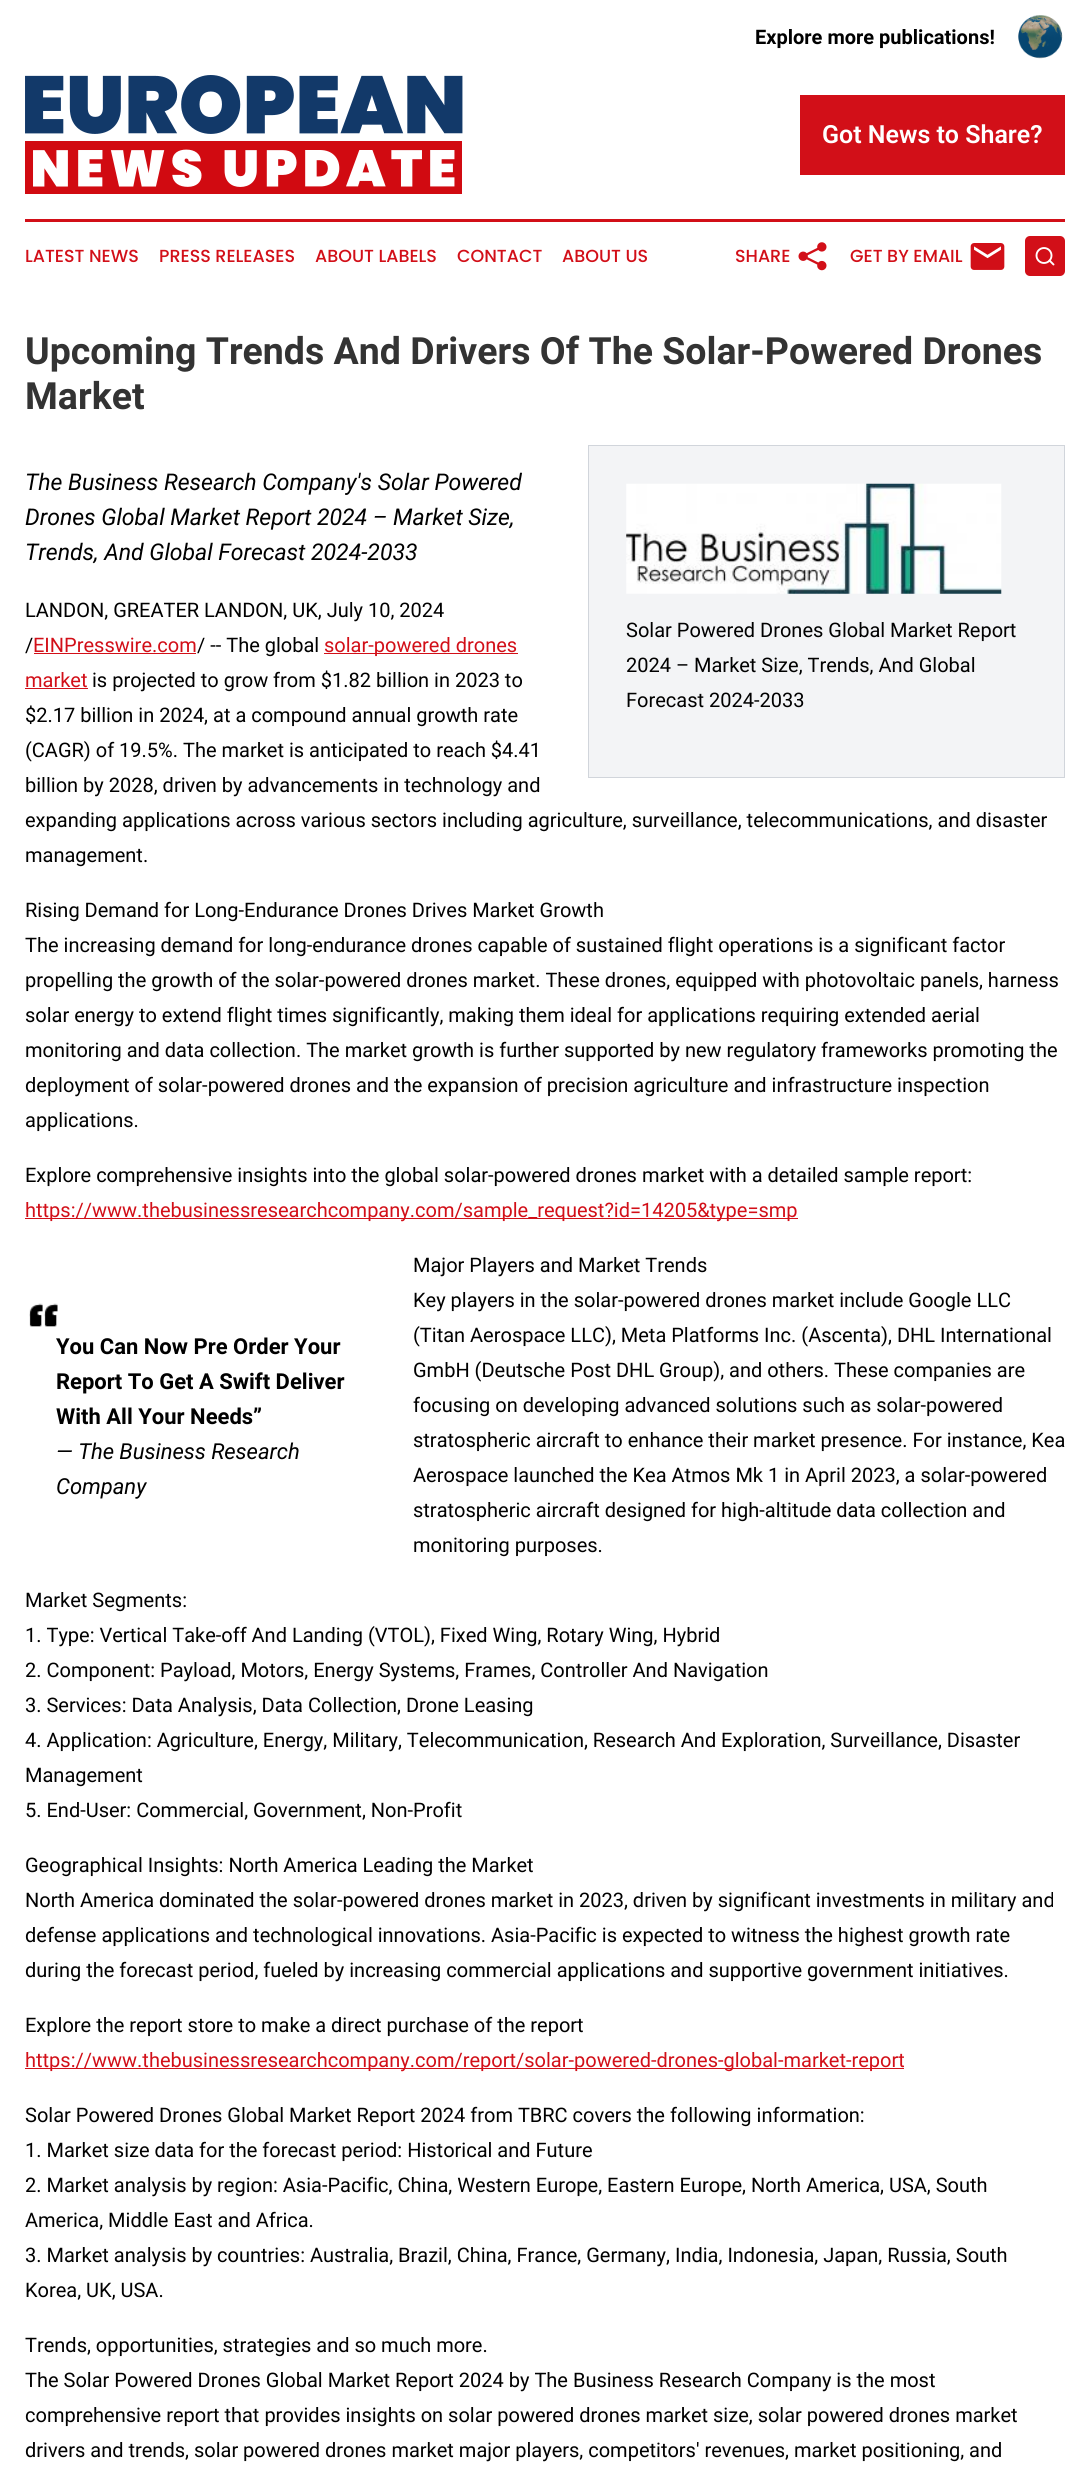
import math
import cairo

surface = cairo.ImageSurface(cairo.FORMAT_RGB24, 1089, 2477)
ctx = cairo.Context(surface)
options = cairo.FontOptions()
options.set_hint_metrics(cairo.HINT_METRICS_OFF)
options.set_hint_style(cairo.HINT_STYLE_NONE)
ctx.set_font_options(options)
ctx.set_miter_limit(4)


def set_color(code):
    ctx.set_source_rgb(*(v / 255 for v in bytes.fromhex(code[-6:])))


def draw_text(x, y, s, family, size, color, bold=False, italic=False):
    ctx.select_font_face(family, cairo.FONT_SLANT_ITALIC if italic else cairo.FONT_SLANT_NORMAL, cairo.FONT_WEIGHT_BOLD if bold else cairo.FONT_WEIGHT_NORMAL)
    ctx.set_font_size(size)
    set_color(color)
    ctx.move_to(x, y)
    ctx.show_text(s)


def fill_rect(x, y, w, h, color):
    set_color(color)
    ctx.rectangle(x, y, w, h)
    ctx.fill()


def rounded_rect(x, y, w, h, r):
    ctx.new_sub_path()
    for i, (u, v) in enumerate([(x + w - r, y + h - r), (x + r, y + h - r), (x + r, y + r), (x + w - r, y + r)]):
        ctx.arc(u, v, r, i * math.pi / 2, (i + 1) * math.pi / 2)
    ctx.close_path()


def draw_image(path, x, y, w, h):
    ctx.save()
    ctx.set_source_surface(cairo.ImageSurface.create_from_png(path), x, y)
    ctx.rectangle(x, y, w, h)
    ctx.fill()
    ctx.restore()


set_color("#ffffff")
ctx.paint()
draw_text(755, 44, "Explore more publications!", "Roboto", 20, "#000000", bold=True)
draw_image("assets/img1.png", 1018, 15, 45, 44)
draw_image("assets/img2.png", 25, 75, 438, 119)
fill_rect(800, 95, 265, 80, "#d20f18")
draw_text(822, 143, "Got News to Share?", "Roboto SemiBold", 25, "#ffffff")
fill_rect(25, 219, 1040, 3, "#d20f18")
draw_text(25, 262, "LATEST NEWS", "Poppins Medium", 17.5, "#d20f18")
draw_text(159, 262, "PRESS RELEASES", "Poppins Medium", 17.5, "#d20f18")
draw_text(315, 262, "ABOUT LABELS", "Poppins Medium", 17.5, "#d20f18")
draw_text(457, 262, "CONTACT", "Poppins Medium", 17.5, "#d20f18")
draw_text(562, 262, "ABOUT US", "Poppins Medium", 17.5, "#d20f18")
draw_text(735, 262, "SHARE", "Poppins Medium", 17.5, "#d20f18")
draw_image("assets/img3.png", 798, 242, 29, 29)
draw_text(850, 262, "GET BY EMAIL", "Poppins Medium", 17.5, "#d20f18")
draw_image("assets/img4.png", 970, 243, 35, 27)
rounded_rect(1025, 236, 40, 40, 5)
ctx.fill()
ctx.arc(1044, 255.5, 7.5, 0, 2 * math.pi)
set_color("#ffffff")
ctx.set_line_width(1.9)
ctx.stroke()
ctx.new_path()
ctx.move_to(1053.5, 264.5)
ctx.line_to(1049.5, 260.5)
ctx.set_line_cap(cairo.LINE_CAP_ROUND)
ctx.set_line_join(cairo.LINE_JOIN_ROUND)
ctx.stroke()
draw_text(25, 364, "Upcoming Trends And Drivers Of The Solar-Powered Drones", "Roboto", 37.5, "#333333", bold=True)
draw_text(25, 409, "Market", "Roboto", 37.5, "#333333", bold=True)
draw_text(25, 490, "The Business Research Company's Solar Powered", "Roboto", 23, "#000000", italic=True)
draw_text(25, 525, "Drones Global Market Report 2024 – Market Size,", "Roboto", 23, "#000000", italic=True)
draw_text(25, 560, "Trends, And Global Forecast 2024-2033", "Roboto", 23, "#000000", italic=True)
draw_text(25, 617, "LANDON, GREATER LANDON, UK, July 10, 2024", "Roboto", 20, "#000000")
draw_text(25, 652, "/", "Roboto", 20, "#000000")
draw_text(33, 652, "EINPresswire.com", "Roboto", 20, "#d20f18")
fill_rect(34, 653, 162, 1, "#d20f18")
draw_text(197, 652, "/ -- The global", "Roboto", 20, "#000000")
fill_rect(324, 653, 194, 1, "#d20f18")
draw_text(324, 652, "solar-powered drones", "Roboto", 20, "#d20f18")
draw_text(25, 687, "market", "Roboto", 20, "#d20f18")
fill_rect(25, 688, 63, 1, "#d20f18")
draw_text(92, 687, "is projected to grow from $1.82 billion in 2023 to", "Roboto", 20, "#000000")
draw_text(25, 722, "$2.17 billion in 2024, at a compound annual growth rate", "Roboto", 20, "#000000")
draw_text(25, 757, "(CAGR) of 19.5%. The market is anticipated to reach $4.41", "Roboto", 20, "#000000")
draw_text(25, 792, "billion by 2028, driven by advancements in technology and", "Roboto", 20, "#000000")
draw_text(25, 827, "expanding applications across various sectors including agriculture, surveillance, telecommunications, and disaster", "Roboto", 20, "#000000")
draw_text(25, 862, "management.", "Roboto", 20, "#000000")
set_color("#f3f4f6")
ctx.rectangle(588.5, 445.5, 476, 332)
ctx.fill_preserve()
set_color("#d1d5db")
ctx.set_line_width(1)
ctx.set_line_cap(cairo.LINE_CAP_BUTT)
ctx.set_line_join(cairo.LINE_JOIN_MITER)
ctx.stroke()
draw_image("assets/img5.png", 626, 483, 376, 111)
draw_text(626, 637, "Solar Powered Drones Global Market Report", "Roboto", 20, "#000000")
draw_text(626, 672, "2024 – Market Size, Trends, And Global", "Roboto", 20, "#000000")
draw_text(626, 707, "Forecast 2024-2033", "Roboto", 20, "#000000")
draw_text(25, 917, "Rising Demand for Long-Endurance Drones Drives Market Growth", "Roboto", 20, "#000000")
draw_text(25, 952, "The increasing demand for long-endurance drones capable of sustained flight operations is a significant factor", "Roboto", 20, "#000000")
draw_text(25, 987, "propelling the growth of the solar-powered drones market. These drones, equipped with photovoltaic panels, harness", "Roboto", 20, "#000000")
draw_text(25, 1022, "solar energy to extend flight times significantly, making them ideal for applications requiring extended aerial", "Roboto", 20, "#000000")
draw_text(25, 1057, "monitoring and data collection. The market growth is further supported by new regulatory frameworks promoting the", "Roboto", 20, "#000000")
draw_text(25, 1092, "deployment of solar-powered drones and the expansion of precision agriculture and infrastructure inspection", "Roboto", 20, "#000000")
draw_text(25, 1127, "applications.", "Roboto", 20, "#000000")
draw_text(25, 1182, "Explore comprehensive insights into the global solar-powered drones market with a detailed sample report:", "Roboto", 20, "#000000")
fill_rect(25, 1218, 773, 1, "#d20f18")
draw_text(25, 1217, "https://www.thebusinessresearchcompany.com/sample_request?id=14205&type=smp", "Roboto", 20, "#d20f18")
draw_image("assets/img6.png", 29, 1303, 29, 24)
draw_text(56, 1354, "You Can Now Pre Order Your", "Roboto", 22, "#000000", bold=True)
draw_text(56, 1389, "Report To Get A Swift Deliver", "Roboto", 22, "#000000", bold=True)
draw_text(56, 1424, "With All Your Needs”", "Roboto", 22, "#000000", bold=True)
draw_text(56, 1459, "— The Business Research", "Roboto", 22, "#000000", italic=True)
draw_text(56, 1494, "Company", "Roboto", 22, "#000000", italic=True)
draw_text(413, 1272, "Major Players and Market Trends", "Roboto", 20, "#000000")
draw_text(413, 1307, "Key players in the solar-powered drones market include Google LLC", "Roboto", 20, "#000000")
draw_text(413, 1342, "(Titan Aerospace LLC), Meta Platforms Inc. (Ascenta), DHL International", "Roboto", 20, "#000000")
draw_text(413, 1377, "GmbH (Deutsche Post DHL Group), and others. These companies are", "Roboto", 20, "#000000")
draw_text(413, 1412, "focusing on developing advanced solutions such as solar-powered", "Roboto", 20, "#000000")
draw_text(413, 1447, "stratospheric aircraft to enhance their market presence. For instance, Kea", "Roboto", 20, "#000000")
draw_text(413, 1482, "Aerospace launched the Kea Atmos Mk 1 in April 2023, a solar-powered", "Roboto", 20, "#000000")
draw_text(413, 1517, "stratospheric aircraft designed for high-altitude data collection and", "Roboto", 20, "#000000")
draw_text(413, 1552, "monitoring purposes.", "Roboto", 20, "#000000")
draw_text(25, 1607, "Market Segments:", "Roboto", 20, "#000000")
draw_text(25, 1642, "1. Type: Vertical Take-off And Landing (VTOL), Fixed Wing, Rotary Wing, Hybrid", "Roboto", 20, "#000000")
draw_text(25, 1677, "2. Component: Payload, Motors, Energy Systems, Frames, Controller And Navigation", "Roboto", 20, "#000000")
draw_text(25, 1712, "3. Services: Data Analysis, Data Collection, Drone Leasing", "Roboto", 20, "#000000")
draw_text(25, 1747, "4. Application: Agriculture, Energy, Military, Telecommunication, Research And Exploration, Surveillance, Disaster", "Roboto", 20, "#000000")
draw_text(25, 1782, "Management", "Roboto", 20, "#000000")
draw_text(25, 1817, "5. End-User: Commercial, Government, Non-Profit", "Roboto", 20, "#000000")
draw_text(25, 1872, "Geographical Insights: North America Leading the Market", "Roboto", 20, "#000000")
draw_text(25, 1907, "North America dominated the solar-powered drones market in 2023, driven by significant investments in military and", "Roboto", 20, "#000000")
draw_text(25, 1942, "defense applications and technological innovations. Asia-Pacific is expected to witness the highest growth rate", "Roboto", 20, "#000000")
draw_text(25, 1977, "during the forecast period, fueled by increasing commercial applications and supportive government initiatives.", "Roboto", 20, "#000000")
draw_text(25, 2032, "Explore the report store to make a direct purchase of the report", "Roboto", 20, "#000000")
fill_rect(25, 2068, 879, 1, "#d20f18")
draw_text(25, 2067, "https://www.thebusinessresearchcompany.com/report/solar-powered-drones-global-market-report", "Roboto", 20, "#d20f18")
draw_text(25, 2122, "Solar Powered Drones Global Market Report 2024 from TBRC covers the following information:", "Roboto", 20, "#000000")
draw_text(25, 2157, "1. Market size data for the forecast period: Historical and Future", "Roboto", 20, "#000000")
draw_text(25, 2192, "2. Market analysis by region: Asia-Pacific, China, Western Europe, Eastern Europe, North America, USA, South", "Roboto", 20, "#000000")
draw_text(25, 2227, "America, Middle East and Africa.", "Roboto", 20, "#000000")
draw_text(25, 2262, "3. Market analysis by countries: Australia, Brazil, China, France, Germany, India, Indonesia, Japan, Russia, South", "Roboto", 20, "#000000")
draw_text(25, 2297, "Korea, UK, USA.", "Roboto", 20, "#000000")
draw_text(25, 2352, "Trends, opportunities, strategies and so much more.", "Roboto", 20, "#000000")
draw_text(25, 2387, "The Solar Powered Drones Global Market Report 2024 by The Business Research Company is the most", "Roboto", 20, "#000000")
draw_text(25, 2422, "comprehensive report that provides insights on solar powered drones market size, solar powered drones market", "Roboto", 20, "#000000")
draw_text(25, 2457, "drivers and trends, solar powered drones market major players, competitors' revenues, market positioning, and", "Roboto", 20, "#000000")
surface.write_to_png("output.png")
